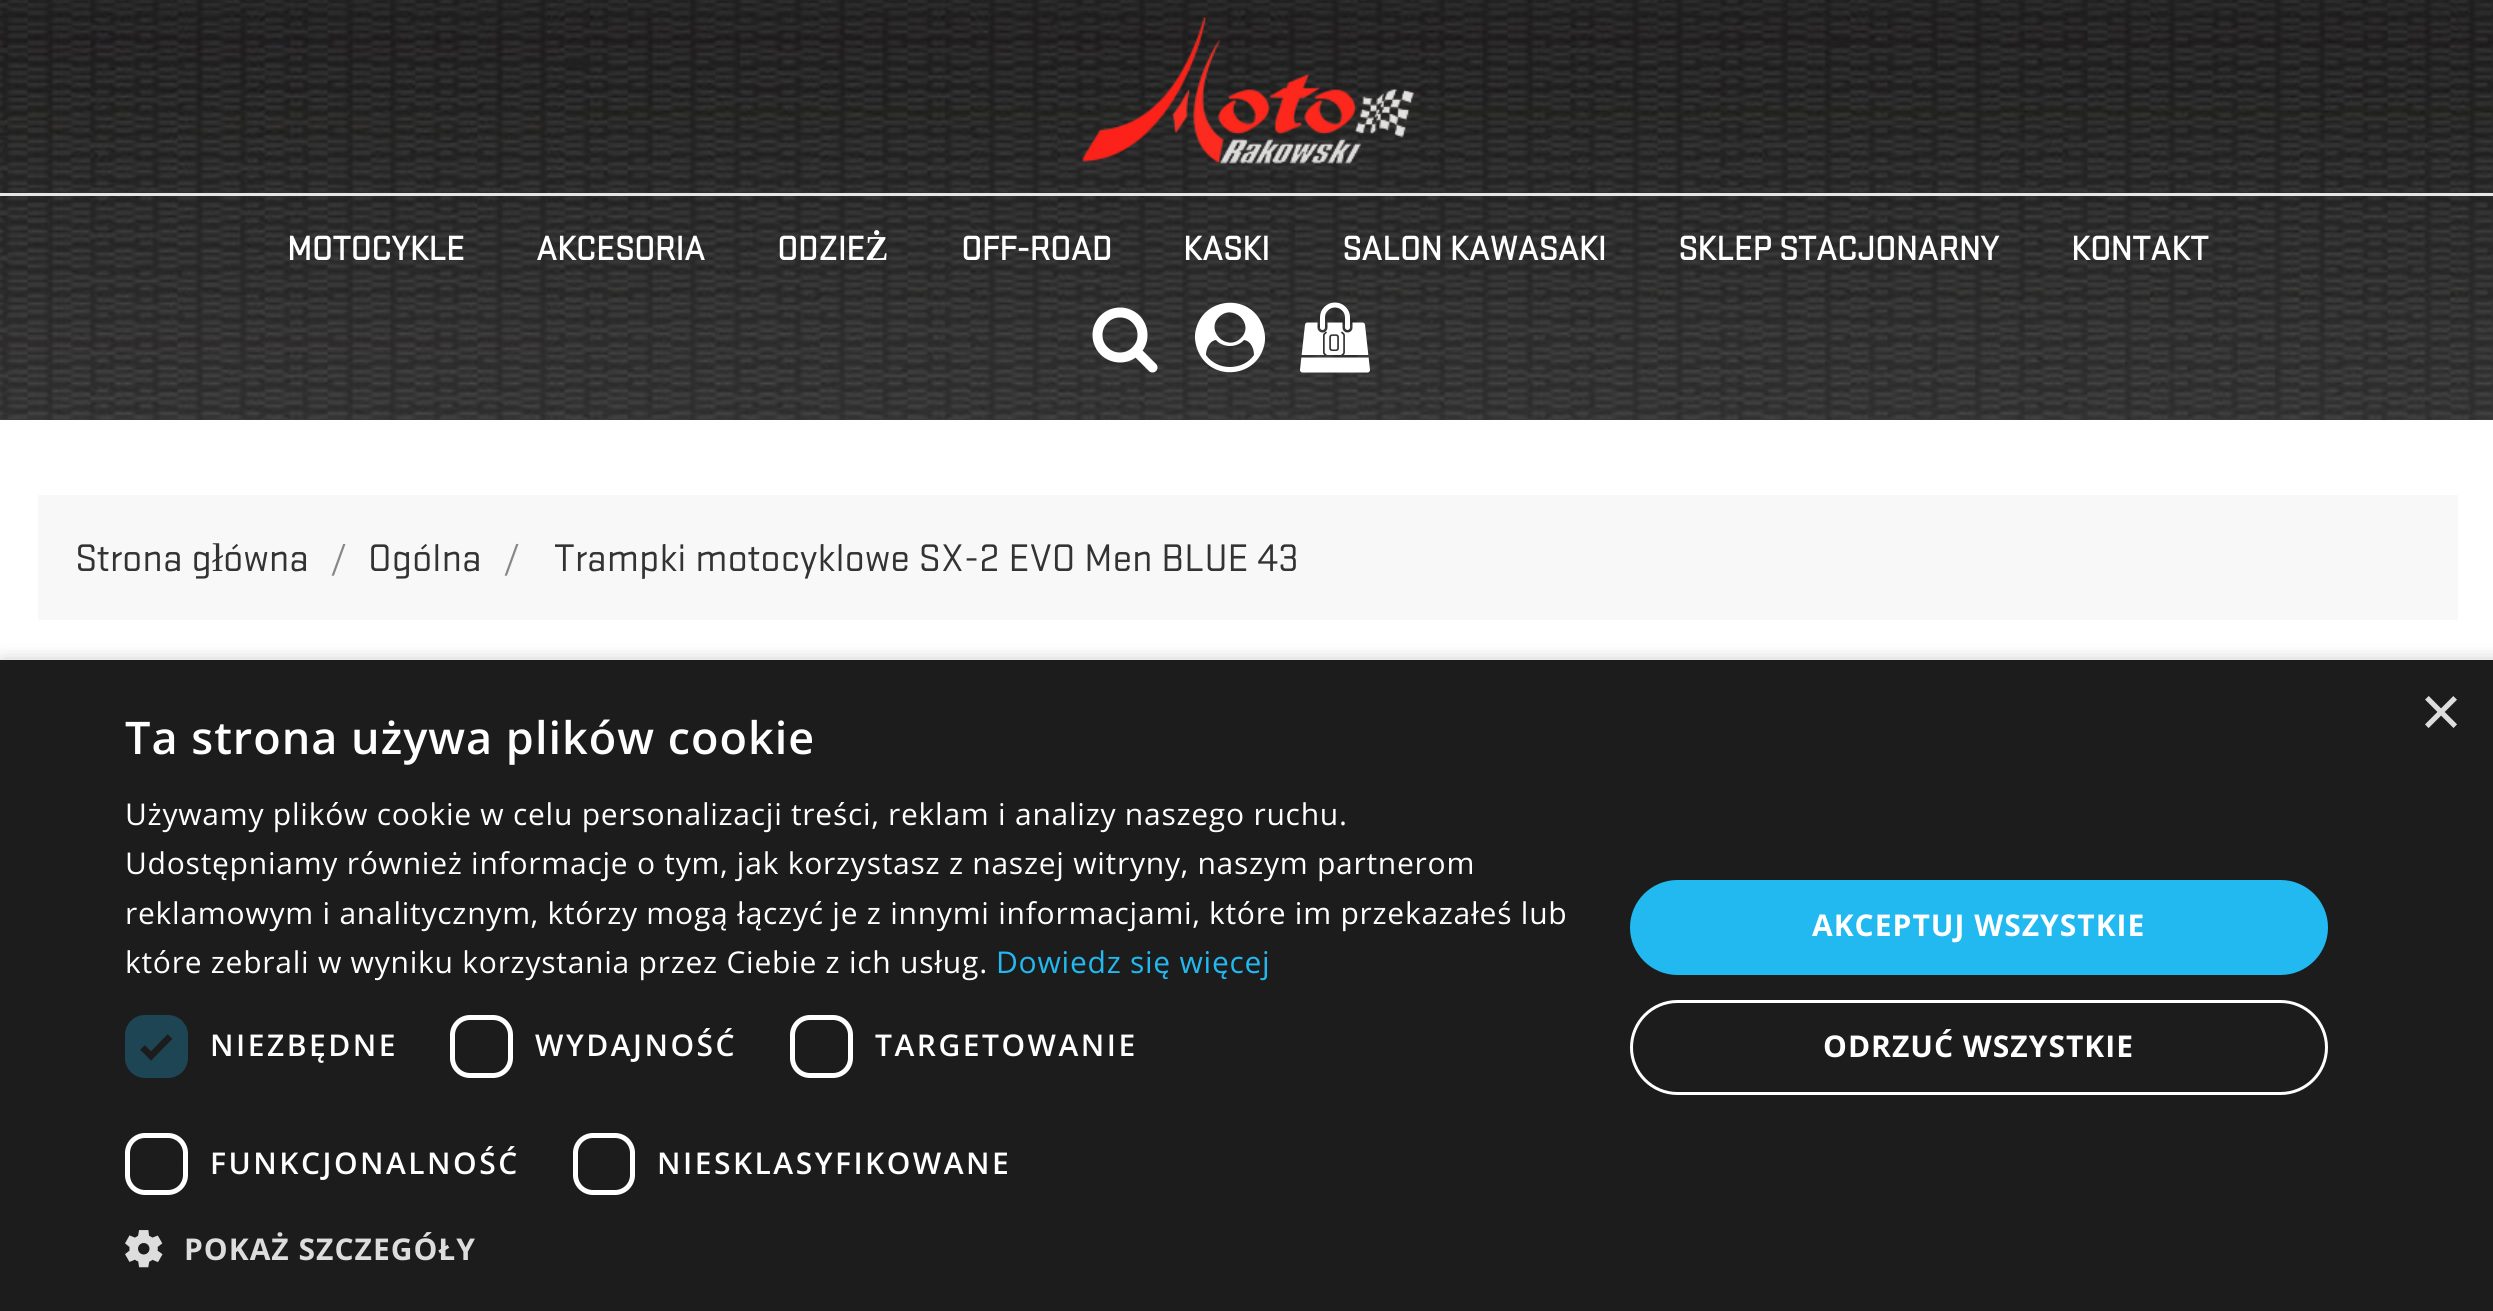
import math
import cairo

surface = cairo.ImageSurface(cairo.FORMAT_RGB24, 2493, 1311)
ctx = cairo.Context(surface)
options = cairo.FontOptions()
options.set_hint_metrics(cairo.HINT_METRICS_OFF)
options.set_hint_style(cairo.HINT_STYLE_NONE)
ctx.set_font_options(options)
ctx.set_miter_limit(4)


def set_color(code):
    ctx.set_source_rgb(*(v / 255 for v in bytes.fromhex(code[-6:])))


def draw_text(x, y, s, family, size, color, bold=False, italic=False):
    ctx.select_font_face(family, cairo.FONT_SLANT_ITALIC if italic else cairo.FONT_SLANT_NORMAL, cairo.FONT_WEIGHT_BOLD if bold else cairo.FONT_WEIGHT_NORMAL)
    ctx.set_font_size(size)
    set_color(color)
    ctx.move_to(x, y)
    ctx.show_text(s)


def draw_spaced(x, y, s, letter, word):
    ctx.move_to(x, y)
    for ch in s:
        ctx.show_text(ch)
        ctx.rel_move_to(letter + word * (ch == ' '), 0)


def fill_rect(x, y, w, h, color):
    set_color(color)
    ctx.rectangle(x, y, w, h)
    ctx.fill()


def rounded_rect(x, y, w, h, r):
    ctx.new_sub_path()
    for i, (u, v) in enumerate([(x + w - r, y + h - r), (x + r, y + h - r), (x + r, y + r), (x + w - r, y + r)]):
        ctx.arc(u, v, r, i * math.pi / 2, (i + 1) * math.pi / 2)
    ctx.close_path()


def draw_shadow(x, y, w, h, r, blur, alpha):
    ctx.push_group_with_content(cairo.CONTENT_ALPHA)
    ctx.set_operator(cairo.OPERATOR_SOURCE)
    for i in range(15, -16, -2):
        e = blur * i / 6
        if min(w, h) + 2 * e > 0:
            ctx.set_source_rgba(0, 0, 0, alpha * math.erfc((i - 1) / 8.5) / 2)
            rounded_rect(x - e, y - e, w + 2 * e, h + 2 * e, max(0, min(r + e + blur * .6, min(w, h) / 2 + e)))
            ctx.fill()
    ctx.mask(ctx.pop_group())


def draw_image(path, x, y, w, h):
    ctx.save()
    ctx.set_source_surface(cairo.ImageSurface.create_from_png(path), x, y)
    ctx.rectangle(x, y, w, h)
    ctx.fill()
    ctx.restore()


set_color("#ffffff")
ctx.paint()
draw_image("assets/img1.png", 0, 0, 2493, 420)
draw_image("assets/img2.png", 1082, 17, 333, 147)
fill_rect(0, 193, 2493, 3, "#e5e5e5")
draw_text(287, 260, "MOTOCYKLE", "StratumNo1", 35, "#ffffff", bold=True)
draw_text(536, 260, "AKCESORIA", "StratumNo1", 35, "#ffffff", bold=True)
draw_text(777, 260, "ODZIE", "StratumNo1", 35, "#ffffff", bold=True)
draw_text(865, 260, "Ż", "Liberation Serif", 35, "#ffffff", bold=True)
draw_text(961, 260, "OFF-ROAD", "StratumNo1", 35, "#ffffff", bold=True)
draw_text(1183, 260, "KASKI", "StratumNo1", 35, "#ffffff", bold=True)
draw_text(1342, 260, "SALON KAWASAKI", "StratumNo1", 35, "#ffffff", bold=True)
draw_text(1678, 260, "SKLEP STACJONARNY", "StratumNo1", 35, "#ffffff", bold=True)
draw_text(2071, 260, "KONTAKT", "StratumNo1", 35, "#ffffff", bold=True)
draw_image("assets/img3.png", 1092, 307, 66, 66)
ctx.new_path()
ctx.move_to(1254, 355)
ctx.curve_to(1254, 349, 1251, 341, 1244, 340)
ctx.curve_to(1237, 348, 1223, 348, 1216, 340)
ctx.curve_to(1209, 341, 1206, 349, 1206, 355)
ctx.curve_to(1217, 371, 1243, 371, 1254, 355)
ctx.close_path()
ctx.move_to(1241, 338)
ctx.curve_to(1255, 324, 1233, 303, 1219, 317)
ctx.curve_to(1205, 331, 1227, 352, 1241, 338)
ctx.close_path()
ctx.move_to(1262, 324)
ctx.curve_to(1265, 331, 1266, 339, 1264, 346)
ctx.curve_to(1256, 378, 1211, 382, 1198, 351)
ctx.curve_to(1195, 344, 1194, 336, 1196, 329)
ctx.curve_to(1204, 297, 1249, 293, 1262, 324)
ctx.close_path()
ctx.fill()
draw_image("assets/img4.png", 1300, 302, 70, 71)
draw_text(1321, 351, "(0)", "StratumNo1", 25, "#333333")
fill_rect(38, 495, 2420, 125, "#f8f8f8")
draw_text(75, 571, "Strona g", "StratumNo1", 40, "#333333")
draw_text(212, 571, "ł", "Liberation Serif", 40, "#333333")
draw_text(223, 571, "ówna", "StratumNo1", 40, "#333333")
draw_text(330, 571, "/", "StratumNo1", 40, "#878787")
draw_text(368, 571, "Ogólna", "StratumNo1", 40, "#333333")
draw_text(503, 571, "/", "StratumNo1", 40, "#878787")
draw_text(554, 571, "Trampki motocyklowe SX-2 EVO Men BLUE 43", "StratumNo1", 40, "#333333")
set_color("#000000")
draw_shadow(3, 665, 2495, 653, 0, 10, 0.35)
fill_rect(0, 660, 2493, 651, "#1c1c1c")
draw_text(2420, 736, "×", "Liberation Sans", 72, "#dddddd")
ctx.select_font_face("Open Sans SemiBold")
ctx.set_font_size(45)
set_color("#ffffff")
draw_spaced(125, 754, "Ta strona używa plików cookie", 1, 0)
ctx.select_font_face("Open Sans")
ctx.set_font_size(30)
draw_spaced(125, 825, "Używamy plików cookie w celu personalizacji treści, reklam i analizy naszego ruchu.", 0.75, 0)
draw_spaced(125, 874, "Udostępniamy również informacje o tym, jak korzystasz z naszej witryny, naszym partnerom", 0.75, 0)
draw_spaced(125, 924, "reklamowym i analitycznym, którzy mogą łączyć je z innymi informacjami, które im przekazałeś lub", 0.75, 0)
draw_spaced(125, 973, "które zebrali w wyniku korzystania przez Ciebie z ich usług.", 0.75, 0)
set_color("#22b8f0")
draw_spaced(996, 973, "Dowiedz się więcej", 0.75, 0)
set_color("#1e4553")
rounded_rect(125, 1015, 63, 63, 20)
ctx.fill()
ctx.new_path()
ctx.move_to(142.5, 1047.5)
ctx.line_to(151, 1056)
ctx.line_to(170, 1036.5)
set_color("#1c1c1c")
ctx.set_line_width(6.6)
ctx.stroke()
ctx.select_font_face("Open Sans SemiBold")
set_color("#ffffff")
draw_spaced(210, 1056, "NIEZBĘDNE", 2.5, 0)
rounded_rect(452.5, 1017.5, 58, 58, 17.5)
ctx.set_line_width(5)
ctx.stroke()
draw_spaced(535, 1056, "WYDAJNOŚĆ", 2.5, 0)
rounded_rect(792.5, 1017.5, 58, 58, 17.5)
ctx.stroke()
draw_spaced(875, 1056, "TARGETOWANIE", 2.5, 0)
rounded_rect(127.5, 1135.5, 58, 57, 17.5)
ctx.stroke()
draw_spaced(210, 1174, "FUNKCJONALNOŚĆ", 2.5, 0)
rounded_rect(575.5, 1135.5, 57, 57, 17.5)
ctx.stroke()
draw_spaced(657, 1174, "NIESKLASYFIKOWANE", 2.5, 0)
draw_image("assets/img5.png", 125, 1230, 38, 38)
ctx.select_font_face("Open Sans", cairo.FONT_SLANT_NORMAL, cairo.FONT_WEIGHT_BOLD)
set_color("#dddddd")
draw_spaced(184, 1260, "POKAŻ SZCZEGÓŁY", 1, 0)
set_color("#22b8f0")
rounded_rect(1630, 880, 698, 95, 47.5)
ctx.fill()
set_color("#ffffff")
draw_spaced(1812, 936, "AKCEPTUJ WSZYSTKIE", 1, 0)
rounded_rect(1631.5, 1001.5, 695, 92, 46)
ctx.set_line_width(3)
ctx.stroke()
draw_spaced(1823, 1057, "ODRZUĆ WSZYSTKIE", 1, 0)
surface.write_to_png("output.png")
